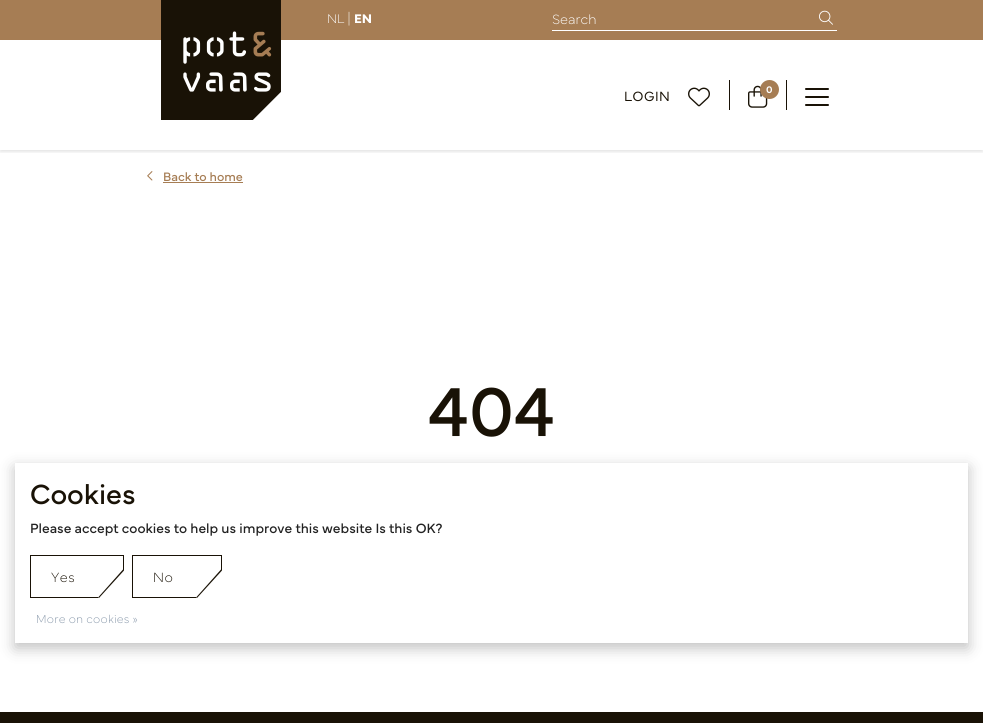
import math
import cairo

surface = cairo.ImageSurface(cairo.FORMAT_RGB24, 983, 723)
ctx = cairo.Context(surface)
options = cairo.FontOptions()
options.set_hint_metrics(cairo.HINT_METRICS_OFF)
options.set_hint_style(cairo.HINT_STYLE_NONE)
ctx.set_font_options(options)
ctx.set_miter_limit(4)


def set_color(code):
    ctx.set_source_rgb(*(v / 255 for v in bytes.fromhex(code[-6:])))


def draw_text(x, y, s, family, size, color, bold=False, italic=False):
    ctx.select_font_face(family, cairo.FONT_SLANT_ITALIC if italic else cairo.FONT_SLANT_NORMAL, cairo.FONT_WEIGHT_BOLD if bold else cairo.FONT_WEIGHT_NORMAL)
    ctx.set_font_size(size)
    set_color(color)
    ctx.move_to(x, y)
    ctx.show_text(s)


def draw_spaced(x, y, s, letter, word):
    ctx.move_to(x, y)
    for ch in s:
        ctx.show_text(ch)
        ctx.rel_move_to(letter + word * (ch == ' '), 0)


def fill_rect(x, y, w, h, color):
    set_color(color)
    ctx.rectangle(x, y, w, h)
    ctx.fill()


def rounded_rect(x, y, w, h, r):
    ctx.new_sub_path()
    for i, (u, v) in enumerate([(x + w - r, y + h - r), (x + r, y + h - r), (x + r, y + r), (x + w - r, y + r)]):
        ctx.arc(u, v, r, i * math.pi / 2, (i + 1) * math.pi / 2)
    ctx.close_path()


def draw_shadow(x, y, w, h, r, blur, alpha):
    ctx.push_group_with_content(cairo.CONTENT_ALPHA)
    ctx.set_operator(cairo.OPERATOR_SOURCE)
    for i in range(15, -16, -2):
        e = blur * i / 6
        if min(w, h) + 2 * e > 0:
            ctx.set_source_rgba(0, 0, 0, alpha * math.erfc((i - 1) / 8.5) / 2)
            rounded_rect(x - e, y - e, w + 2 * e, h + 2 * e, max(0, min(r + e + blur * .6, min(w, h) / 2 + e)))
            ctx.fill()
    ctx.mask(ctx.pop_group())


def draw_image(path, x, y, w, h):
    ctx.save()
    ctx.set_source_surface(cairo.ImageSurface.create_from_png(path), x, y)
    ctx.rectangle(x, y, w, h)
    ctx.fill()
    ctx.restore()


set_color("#ffffff")
ctx.paint()
ctx.save()
ctx.rectangle(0, 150, 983, 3)
ctx.clip()
set_color("#000000")
draw_shadow(0, 2, 983, 150, 0, 1.5, 0.1)
ctx.restore()
fill_rect(0, 0, 983, 40, "#a67d54")
draw_text(327, 23, "NL |", "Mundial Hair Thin", 13, "#ffffff")
draw_text(354, 23, "EN", "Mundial", 13, "#ffffff", bold=True)
fill_rect(552, 30, 285, 1, "#ffffff")
draw_text(552, 24, "Search", "Mundial Hair Thin", 14, "#ffffff")
draw_image("assets/img1.png", 819, 10, 14, 15)
draw_image("assets/img2.png", 161, 0, 120, 120)
ctx.select_font_face("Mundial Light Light")
set_color("#191206")
draw_spaced(624, 101, "LOGIN", 0.5, 0)
draw_image("assets/img3.png", 688, 87, 22, 20)
fill_rect(729, 80, 1, 30, "#191206")
draw_image("assets/img4.png", 748, 85, 20, 23)
set_color("#a67d54")
ctx.arc(769.5, 89.5, 9.5, 0, 2 * math.pi)
ctx.fill()
ctx.select_font_face("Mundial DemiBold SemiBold")
ctx.set_font_size(10)
set_color("#ffffff")
draw_spaced(766, 93, "0", 0.5, 0)
fill_rect(786, 80, 1, 30, "#191206")
rounded_rect(805, 88, 24, 2, 1)
ctx.fill()
rounded_rect(805, 96, 24, 2, 1)
ctx.fill()
rounded_rect(805, 104, 24, 2, 1)
ctx.fill()
draw_image("assets/img5.png", 147, 171, 6, 10)
draw_text(163, 181, "Back to home", "Mundial", 12.75, "#a67d54")
fill_rect(163, 182, 80, 1, "#a67d54")
draw_text(428, 436, "404", "Mundial", 72, "#191206")
fill_rect(0, 712, 983, 11, "#191206")
set_color("#000000")
draw_shadow(15, 468, 953, 180, 0, 7.5, 0.25)
fill_rect(15, 463, 953, 180, "#ffffff")
draw_text(30, 504, "Cookies", "Mundial", 29, "#191206")
draw_text(30, 533, "Please accept cookies to help us improve this website Is this OK?", "Mundial", 14, "#222222")
ctx.rectangle(30.5, 555.5, 93, 42)
set_color("#191206")
ctx.set_line_width(1)
ctx.stroke()
ctx.select_font_face("Mundial Hair Thin")
draw_spaced(51, 582, "Yes", 0.5, 0)
set_color("#ffffff")
ctx.new_path()
ctx.move_to(123, 570)
ctx.line_to(141, 586)
ctx.line_to(116, 613)
ctx.line_to(98, 597)
ctx.close_path()
ctx.fill()
set_color("#191206")
ctx.new_path()
ctx.move_to(123, 569.5)
ctx.line_to(124, 570.5)
ctx.line_to(99, 598)
ctx.line_to(98.5, 597)
ctx.close_path()
ctx.fill()
ctx.rectangle(132.5, 555.5, 89, 42)
ctx.stroke()
draw_spaced(153, 582, "No", 0.5, 0)
set_color("#ffffff")
ctx.new_path()
ctx.move_to(221, 570)
ctx.line_to(239, 586)
ctx.line_to(214, 613)
ctx.line_to(196, 597)
ctx.close_path()
ctx.fill()
set_color("#191206")
ctx.new_path()
ctx.move_to(221, 569.5)
ctx.line_to(222, 570.5)
ctx.line_to(197, 598)
ctx.line_to(196.5, 597)
ctx.close_path()
ctx.fill()
ctx.set_font_size(12)
set_color("#8898aa")
draw_spaced(36, 623, "More on cookies »", 0.25, 0)
surface.write_to_png("output.png")
